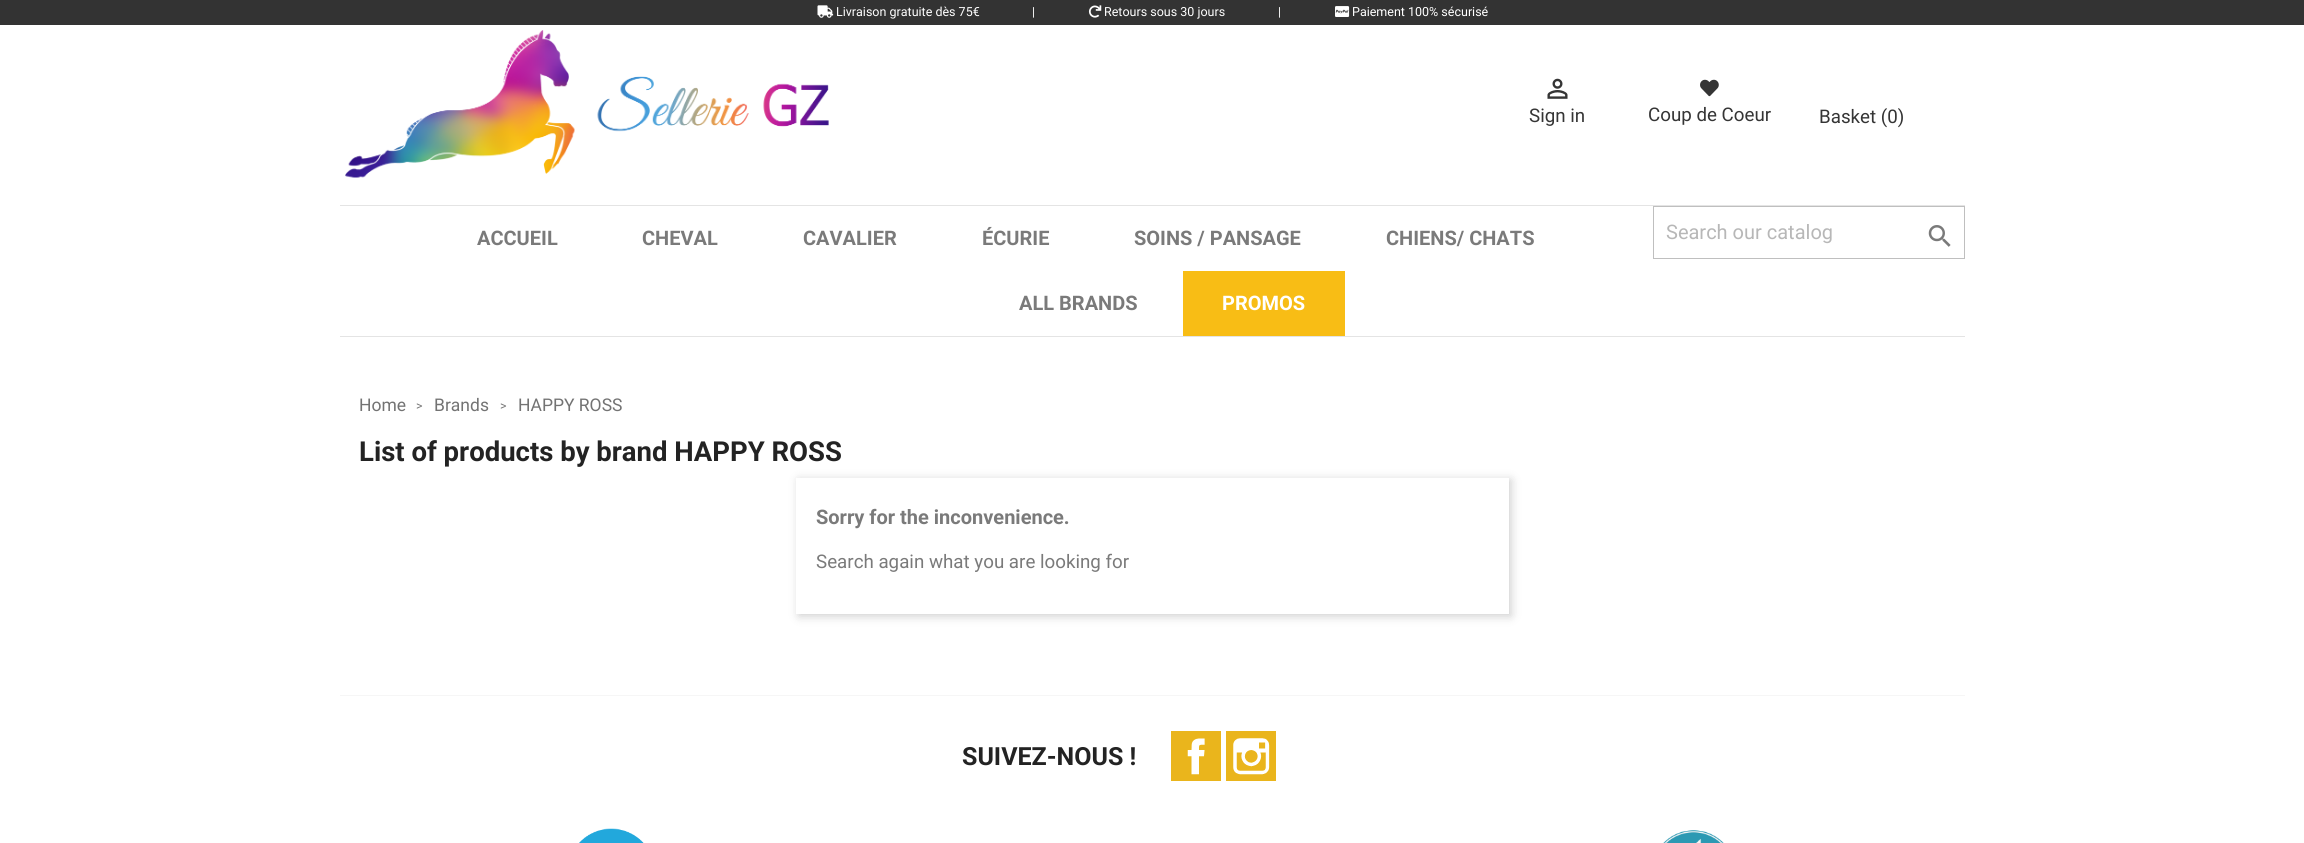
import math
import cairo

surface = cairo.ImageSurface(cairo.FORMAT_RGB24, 2304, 843)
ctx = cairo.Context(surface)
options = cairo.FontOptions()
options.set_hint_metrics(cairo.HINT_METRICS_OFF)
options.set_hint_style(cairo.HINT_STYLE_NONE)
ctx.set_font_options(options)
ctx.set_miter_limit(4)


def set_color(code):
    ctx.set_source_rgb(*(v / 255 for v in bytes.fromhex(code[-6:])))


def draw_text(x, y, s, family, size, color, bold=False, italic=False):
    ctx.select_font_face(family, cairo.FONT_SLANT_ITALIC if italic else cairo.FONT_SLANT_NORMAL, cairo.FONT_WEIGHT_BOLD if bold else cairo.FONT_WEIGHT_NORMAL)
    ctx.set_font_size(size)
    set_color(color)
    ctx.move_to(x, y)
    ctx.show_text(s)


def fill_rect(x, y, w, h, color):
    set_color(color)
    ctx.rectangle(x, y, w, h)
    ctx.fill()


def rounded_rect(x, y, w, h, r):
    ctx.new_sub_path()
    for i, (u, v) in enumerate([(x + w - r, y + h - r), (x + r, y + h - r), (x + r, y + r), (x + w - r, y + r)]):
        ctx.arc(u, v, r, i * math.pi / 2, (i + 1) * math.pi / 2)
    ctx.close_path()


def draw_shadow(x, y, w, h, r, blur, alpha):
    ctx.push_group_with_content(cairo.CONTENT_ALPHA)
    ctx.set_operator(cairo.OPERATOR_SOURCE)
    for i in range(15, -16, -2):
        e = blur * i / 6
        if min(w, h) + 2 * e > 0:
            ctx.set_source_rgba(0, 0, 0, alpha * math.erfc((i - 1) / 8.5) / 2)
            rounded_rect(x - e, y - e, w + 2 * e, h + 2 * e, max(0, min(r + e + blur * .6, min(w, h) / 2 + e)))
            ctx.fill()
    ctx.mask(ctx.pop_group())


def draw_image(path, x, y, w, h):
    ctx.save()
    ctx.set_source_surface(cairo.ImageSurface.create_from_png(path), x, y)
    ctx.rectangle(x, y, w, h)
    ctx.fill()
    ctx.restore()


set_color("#ffffff")
ctx.paint()
fill_rect(0, 0, 2304, 25, "#333333")
draw_image("assets/img1.png", 817, 5, 17, 13)
draw_text(836, 16, "Livraison gratuite dès 75€", "Roboto", 12.5, "#ffffff")
draw_text(1032, 16, "|", "Roboto", 12.5, "#ffffff")
draw_image("assets/img2.png", 1088, 5, 14, 13)
draw_text(1104, 16, "Retours sous 30 jours", "Roboto", 12.5, "#ffffff")
draw_text(1278, 16, "|", "Roboto", 12.5, "#ffffff")
draw_image("assets/img3.png", 1335, 6, 15, 11)
draw_text(1352, 16, "Paiement 100% sécurisé", "Roboto", 12.5, "#ffffff")
draw_image("assets/img4.png", 345, 30, 484, 148)
draw_image("assets/img5.png", 1547, 78, 21, 21)
draw_text(1529, 122, "Sign in", "Roboto", 18.75, "#353535")
draw_image("assets/img6.png", 1700, 79, 19, 18)
draw_text(1648, 121, "Coup de Coeur", "Roboto", 18.75, "#353535")
draw_text(1819, 123, "Basket (0)", "Roboto", 18.75, "#353535")
fill_rect(340, 205, 1625, 1, "#e4e4e4")
fill_rect(340, 336, 1625, 1, "#e4e4e4")
draw_text(477, 245, "ACCUEIL", "Roboto", 20, "#7a7a7a", bold=True)
draw_text(642, 245, "CHEVAL", "Roboto", 20, "#7a7a7a", bold=True)
draw_text(803, 245, "CAVALIER", "Roboto", 20, "#7a7a7a", bold=True)
draw_text(982, 245, "ÉCURIE", "Roboto", 20, "#7a7a7a", bold=True)
draw_text(1134, 245, "SOINS / PANSAGE", "Roboto", 20, "#7a7a7a", bold=True)
draw_text(1386, 245, "CHIENS/ CHATS", "Roboto", 20, "#7a7a7a", bold=True)
draw_text(1019, 310, "ALL BRANDS", "Roboto", 20, "#7a7a7a", bold=True)
fill_rect(1183, 271, 162, 65, "#f8bd15")
draw_text(1222, 310, "PROMOS", "Roboto", 20, "#ffffff", bold=True)
ctx.rectangle(1653.5, 206.5, 311, 52)
set_color("#bfbfbf")
ctx.set_line_width(1)
ctx.stroke()
draw_text(1666, 239, "Search our catalog", "Roboto", 20, "#b7b7b7")
draw_image("assets/img7.png", 1928, 225, 23, 22)
draw_text(359, 411, "Home", "Roboto", 17.5, "#737373")
draw_text(416, 410, ">", "Roboto", 12.5, "#7a7a7a")
draw_text(434, 411, "Brands", "Roboto", 17.5, "#737373")
draw_text(500, 410, ">", "Roboto", 12.5, "#7a7a7a")
draw_text(518, 411, "HAPPY ROSS", "Roboto", 17.5, "#737373")
set_color("#000000")
draw_shadow(799, 480, 712, 136, 0, 5, 0.2)
draw_text(359, 461, "List of products by brand HAPPY ROSS", "Roboto", 27.5, "#232323", bold=True)
fill_rect(796, 478, 713, 136, "#ffffff")
draw_text(816, 524, "Sorry for the inconvenience.", "Roboto", 20, "#7a7a7a", bold=True)
draw_text(816, 568, "Search again what you are looking for", "Roboto", 18.75, "#7a7a7a")
fill_rect(340, 695, 1625, 1, "#f6f6f6")
draw_text(962, 765, "SUIVEZ-NOUS !", "Roboto", 25, "#232323", bold=True)
fill_rect(1171, 731, 50, 50, "#eab51c")
draw_image("assets/img8.png", 1187, 738, 18, 37)
fill_rect(1226, 731, 50, 50, "#eab51c")
draw_image("assets/img9.png", 1233, 738, 37, 37)
draw_image("assets/img10.png", 579, 828, 65, 15)
draw_image("assets/img11.png", 1663, 830, 61, 13)
surface.write_to_png("output.png")
